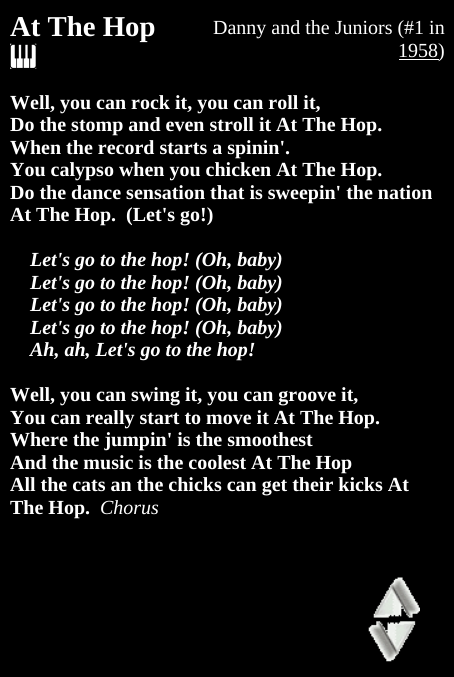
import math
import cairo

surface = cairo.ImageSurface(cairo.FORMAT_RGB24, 454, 677)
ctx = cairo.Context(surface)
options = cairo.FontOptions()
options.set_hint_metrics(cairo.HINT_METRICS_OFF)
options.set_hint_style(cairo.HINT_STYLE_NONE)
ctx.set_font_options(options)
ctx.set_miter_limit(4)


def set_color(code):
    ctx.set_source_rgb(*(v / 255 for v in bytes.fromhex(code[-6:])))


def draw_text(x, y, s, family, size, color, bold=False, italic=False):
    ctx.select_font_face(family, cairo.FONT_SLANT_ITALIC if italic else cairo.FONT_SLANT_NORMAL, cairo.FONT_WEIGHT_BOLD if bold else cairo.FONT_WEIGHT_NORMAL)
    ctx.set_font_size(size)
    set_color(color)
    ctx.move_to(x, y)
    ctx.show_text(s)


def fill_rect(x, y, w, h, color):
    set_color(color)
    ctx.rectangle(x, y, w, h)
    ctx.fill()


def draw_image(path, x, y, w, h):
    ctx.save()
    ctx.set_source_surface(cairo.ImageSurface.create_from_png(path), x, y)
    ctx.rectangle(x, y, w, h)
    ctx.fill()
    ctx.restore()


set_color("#000000")
ctx.paint()
draw_text(10, 36, "At The Hop", "Liberation Serif", 28.75, "#ffffff", bold=True)
draw_image("assets/img1.png", 10, 43, 27, 26)
draw_text(213, 34, "Danny and the Juniors (#1 in", "Liberation Serif", 20, "#ffffff")
fill_rect(399, 59, 40, 1, "#ffffff")
draw_text(398, 57, "1958)", "Liberation Serif", 20, "#ffffff")
draw_text(10, 109, "Well, you can rock it, you can roll it,", "Liberation Serif", 20, "#ffffff", bold=True)
draw_text(10, 131, "Do the stomp and even stroll it At The Hop.", "Liberation Serif", 20, "#ffffff", bold=True)
draw_text(10, 154, "When the record starts a spinin'.", "Liberation Serif", 20, "#ffffff", bold=True)
draw_text(10, 176, "You calypso when you chicken At The Hop.", "Liberation Serif", 20, "#ffffff", bold=True)
draw_text(10, 199, "Do the dance sensation that is sweepin' the nation", "Liberation Serif", 20, "#ffffff", bold=True)
draw_text(10, 221, "At The Hop.  (Let's go!)", "Liberation Serif", 20, "#ffffff", bold=True)
draw_text(30, 266, "Let's go to the hop! (Oh, baby)", "Liberation Serif", 20, "#ffffff", bold=True, italic=True)
draw_text(30, 289, "Let's go to the hop! (Oh, baby)", "Liberation Serif", 20, "#ffffff", bold=True, italic=True)
draw_text(30, 311, "Let's go to the hop! (Oh, baby)", "Liberation Serif", 20, "#ffffff", bold=True, italic=True)
draw_text(30, 334, "Let's go to the hop! (Oh, baby)", "Liberation Serif", 20, "#ffffff", bold=True, italic=True)
draw_text(30, 356, "Ah, ah, Let's go to the hop!", "Liberation Serif", 20, "#ffffff", bold=True, italic=True)
draw_text(10, 401, "Well, you can swing it, you can groove it,", "Liberation Serif", 20, "#ffffff", bold=True)
draw_text(10, 424, "You can really start to move it At The Hop.", "Liberation Serif", 20, "#ffffff", bold=True)
draw_text(10, 446, "Where the jumpin' is the smoothest", "Liberation Serif", 20, "#ffffff", bold=True)
draw_text(10, 469, "And the music is the coolest At The Hop", "Liberation Serif", 20, "#ffffff", bold=True)
draw_text(10, 491, "All the cats an the chicks can get their kicks At", "Liberation Serif", 20, "#ffffff", bold=True)
draw_text(10, 514, "The Hop.", "Liberation Serif", 20, "#ffffff", bold=True)
draw_text(100, 514, "Chorus", "Liberation Serif", 20, "#ffffff", italic=True)
draw_image("assets/img2.png", 373, 577, 47, 41)
draw_image("assets/img3.png", 368, 621, 48, 41)
surface.write_to_png("output.png")
